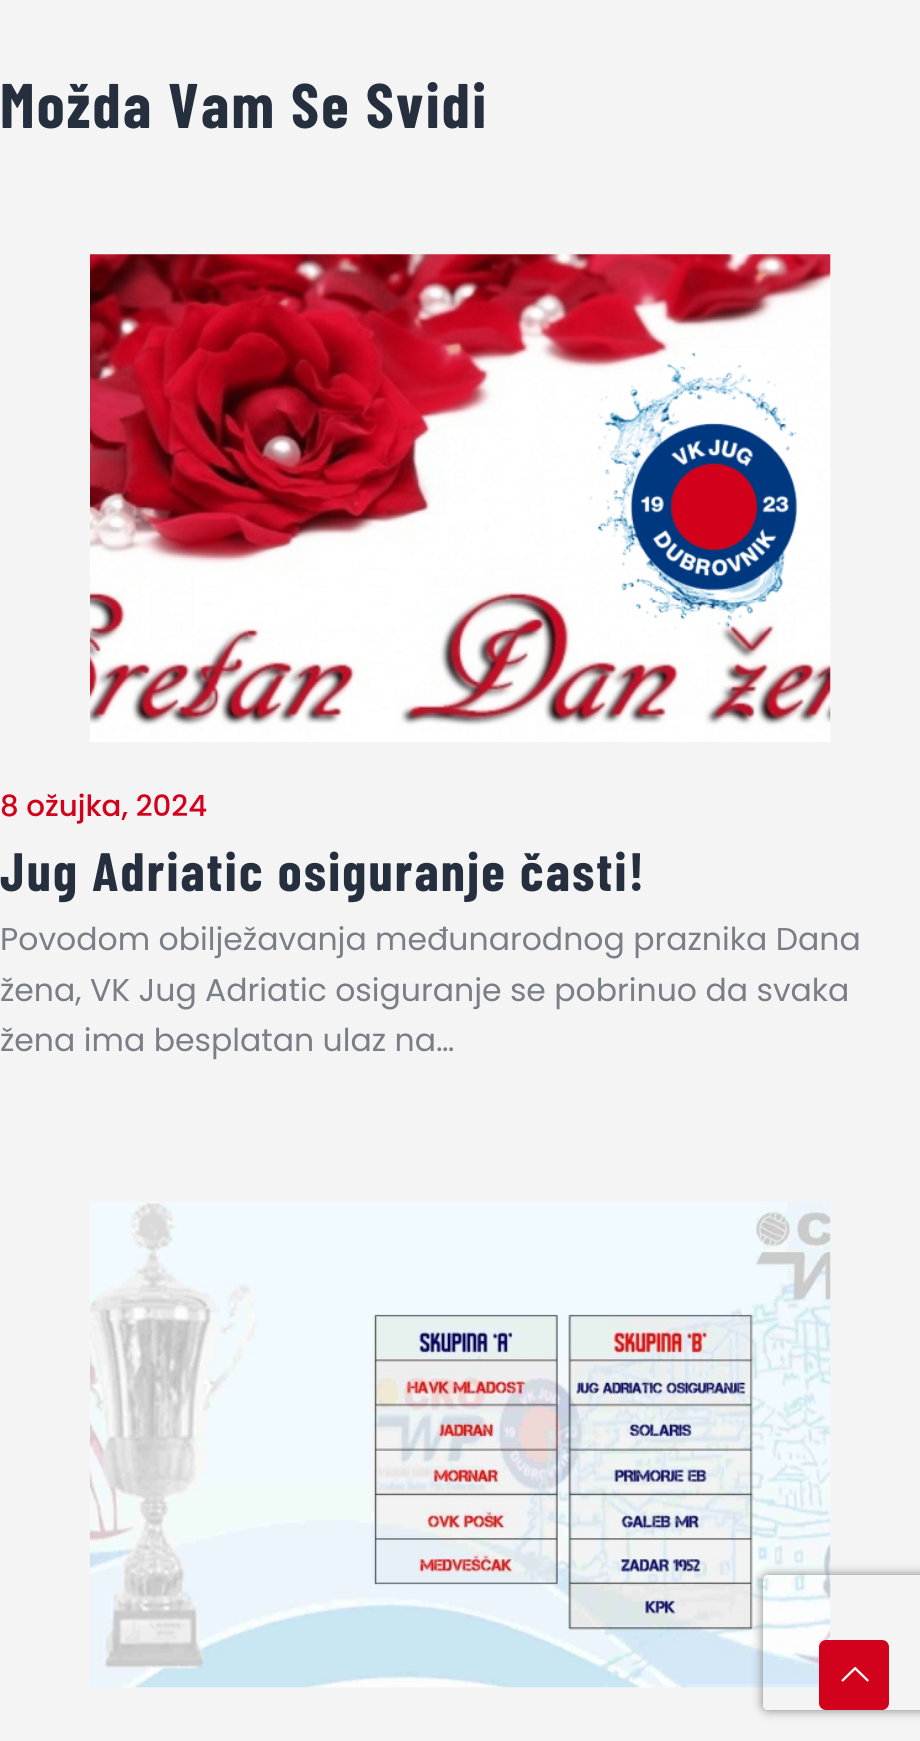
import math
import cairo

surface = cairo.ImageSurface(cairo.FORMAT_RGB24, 920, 1741)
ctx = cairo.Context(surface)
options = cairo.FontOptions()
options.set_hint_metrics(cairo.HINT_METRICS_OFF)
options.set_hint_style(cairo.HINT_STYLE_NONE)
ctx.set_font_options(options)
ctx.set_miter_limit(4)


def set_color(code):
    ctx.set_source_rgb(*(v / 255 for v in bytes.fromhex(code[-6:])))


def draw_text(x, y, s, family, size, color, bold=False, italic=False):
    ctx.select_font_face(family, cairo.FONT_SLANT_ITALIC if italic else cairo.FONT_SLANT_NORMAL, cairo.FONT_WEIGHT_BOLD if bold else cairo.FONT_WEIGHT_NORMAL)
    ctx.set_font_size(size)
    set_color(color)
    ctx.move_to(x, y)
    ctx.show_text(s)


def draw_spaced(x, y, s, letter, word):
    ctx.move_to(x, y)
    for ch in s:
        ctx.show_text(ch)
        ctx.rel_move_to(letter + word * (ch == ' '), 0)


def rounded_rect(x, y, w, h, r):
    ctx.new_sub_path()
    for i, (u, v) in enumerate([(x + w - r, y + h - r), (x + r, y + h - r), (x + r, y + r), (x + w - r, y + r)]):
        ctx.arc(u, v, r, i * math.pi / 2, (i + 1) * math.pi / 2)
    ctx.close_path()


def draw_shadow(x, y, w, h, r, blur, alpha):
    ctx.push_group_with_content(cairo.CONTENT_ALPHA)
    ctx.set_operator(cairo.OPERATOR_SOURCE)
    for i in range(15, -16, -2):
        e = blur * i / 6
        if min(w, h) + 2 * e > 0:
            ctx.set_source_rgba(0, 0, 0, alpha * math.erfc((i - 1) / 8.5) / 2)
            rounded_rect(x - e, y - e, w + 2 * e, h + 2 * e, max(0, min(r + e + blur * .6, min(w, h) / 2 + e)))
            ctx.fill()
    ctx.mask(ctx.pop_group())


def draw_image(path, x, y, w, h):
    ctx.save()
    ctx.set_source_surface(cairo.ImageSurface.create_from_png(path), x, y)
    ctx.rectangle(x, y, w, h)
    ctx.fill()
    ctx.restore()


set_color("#f4f4f4")
ctx.paint()
ctx.select_font_face("Barlow Condensed", cairo.FONT_SLANT_NORMAL, cairo.FONT_WEIGHT_BOLD)
ctx.set_font_size(63)
set_color("#262f3e")
draw_spaced(0, 128, "Možda Vam Se Svidi", 2.25, 0)
draw_image("assets/img1.png", 90, 254, 741, 488)
draw_text(0, 816, "8 ožujka, 2024", "Poppins Medium", 29.25, "#d3021c")
ctx.select_font_face("Barlow Condensed", cairo.FONT_SLANT_NORMAL, cairo.FONT_WEIGHT_BOLD)
ctx.set_font_size(54)
set_color("#262f3e")
draw_spaced(0, 891, "Jug Adriatic osiguranje časti!", 2.25, 0)
draw_text(0, 950, "Povodom obilježavanja međunarodnog praznika Dana", "Poppins", 31.5, "#797e87")
draw_text(0, 1001, "žena, VK Jug Adriatic osiguranje se pobrinuo da svaka", "Poppins", 31.5, "#797e87")
draw_text(0, 1051, "žena ima besplatan ulaz na…", "Poppins", 31.5, "#797e87")
draw_image("assets/img2.png", 90, 1201, 741, 487)
ctx.save()
ctx.set_fill_rule(cairo.FILL_RULE_EVEN_ODD)
ctx.new_path()
ctx.move_to(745, 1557)
ctx.line_to(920, 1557)
ctx.line_to(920, 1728)
ctx.line_to(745, 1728)
ctx.close_path()
ctx.move_to(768, 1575)
ctx.line_to(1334, 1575)
ctx.curve_to(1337, 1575, 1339, 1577, 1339, 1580)
ctx.line_to(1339, 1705)
ctx.curve_to(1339, 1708, 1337, 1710, 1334, 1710)
ctx.line_to(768, 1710)
ctx.curve_to(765, 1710, 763, 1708, 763, 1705)
ctx.line_to(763, 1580)
ctx.curve_to(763, 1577, 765, 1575, 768, 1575)
ctx.close_path()
ctx.clip()
set_color("#808080")
draw_shadow(763, 1575, 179, 135, 5, 5.5, 1)
ctx.restore()
set_color("#d3021c")
rounded_rect(819, 1640, 70, 70, 7)
ctx.fill()
draw_image("assets/img3.png", 841, 1666, 28, 16)
surface.write_to_png("output.png")
